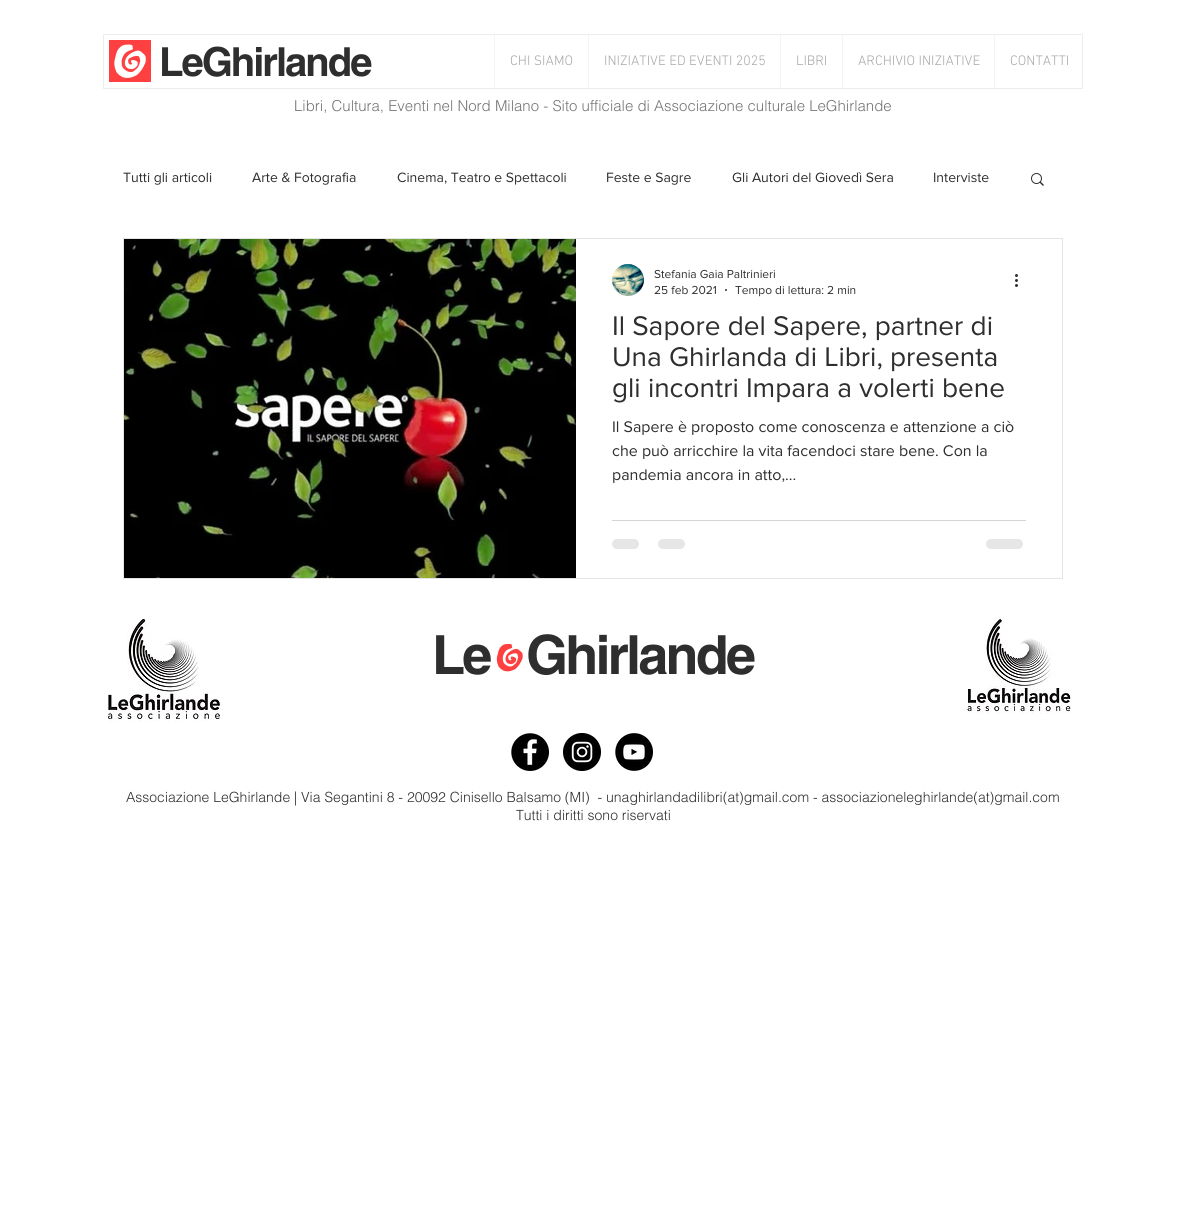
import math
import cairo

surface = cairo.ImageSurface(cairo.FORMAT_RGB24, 1186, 1227)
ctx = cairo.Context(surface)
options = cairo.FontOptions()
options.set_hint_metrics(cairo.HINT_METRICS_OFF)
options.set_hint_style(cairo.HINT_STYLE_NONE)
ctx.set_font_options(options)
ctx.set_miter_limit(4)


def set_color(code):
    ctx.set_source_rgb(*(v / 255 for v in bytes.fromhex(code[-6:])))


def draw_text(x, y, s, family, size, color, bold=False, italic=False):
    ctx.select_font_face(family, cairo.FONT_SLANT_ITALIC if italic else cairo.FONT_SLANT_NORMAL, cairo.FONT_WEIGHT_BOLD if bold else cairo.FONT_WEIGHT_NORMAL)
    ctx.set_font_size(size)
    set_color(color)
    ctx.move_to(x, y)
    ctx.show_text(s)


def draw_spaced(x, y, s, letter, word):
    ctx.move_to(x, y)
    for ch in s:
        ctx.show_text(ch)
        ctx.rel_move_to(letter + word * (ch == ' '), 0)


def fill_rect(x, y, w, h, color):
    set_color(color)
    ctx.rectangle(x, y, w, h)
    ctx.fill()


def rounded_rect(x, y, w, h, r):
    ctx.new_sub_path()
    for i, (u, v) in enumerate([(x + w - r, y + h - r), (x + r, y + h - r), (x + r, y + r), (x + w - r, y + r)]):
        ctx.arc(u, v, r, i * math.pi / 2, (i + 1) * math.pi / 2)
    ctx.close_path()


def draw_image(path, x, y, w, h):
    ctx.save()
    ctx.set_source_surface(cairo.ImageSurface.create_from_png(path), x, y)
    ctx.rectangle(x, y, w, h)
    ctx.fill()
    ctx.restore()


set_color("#ffffff")
ctx.paint()
ctx.rectangle(103.5, 34.5, 979, 54)
set_color("#ededed")
ctx.set_line_width(1)
ctx.stroke()
fill_rect(109, 40, 42, 42, "#ff4040")
draw_image("assets/img1.png", 114, 44, 32, 34)
ctx.select_font_face("helvetica", cairo.FONT_SLANT_NORMAL, cairo.FONT_WEIGHT_BOLD)
ctx.set_font_size(40)
set_color("#2f2e2e")
draw_spaced(159, 76, "LeGhirlande", -2, 0)
fill_rect(494, 35, 1, 53, "#f4f4f4")
draw_text(510, 65, "CHI SIAMO", "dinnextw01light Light", 14, "#a8a8a7")
fill_rect(588, 35, 1, 53, "#f4f4f4")
draw_text(604, 65, "INIZIATIVE ED EVENTI 2025", "dinnextw01light Light", 14, "#a8a8a7")
fill_rect(780, 35, 1, 53, "#f4f4f4")
draw_text(796, 65, "LIBRI", "dinnextw01light Light", 14, "#a8a8a7")
fill_rect(842, 35, 1, 53, "#f4f4f4")
draw_text(858, 65, "ARCHIVIO INIZIATIVE", "dinnextw01light Light", 14, "#a8a8a7")
fill_rect(994, 35, 1, 53, "#f4f4f4")
draw_text(1010, 65, "CONTATTI", "dinnextw01light Light", 14, "#a8a8a7")
draw_text(294, 111, "Libri, Cultura, Eventi nel Nord Milano - Sito ufficiale di Associazione culturale LeGhirlande", "helvetica Light", 15, "#757474")
draw_text(123, 182, "Tutti gli articoli", "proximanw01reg", 14, "#2f2e2e")
draw_text(252, 182, "Arte & Fotografia", "proximanw01reg", 14, "#2f2e2e")
draw_text(397, 182, "Cinema, Teatro e Spettacoli", "proximanw01reg", 14, "#2f2e2e")
draw_text(606, 182, "Feste e Sagre", "proximanw01reg", 14, "#2f2e2e")
draw_text(732, 182, "Gli Autori del Giovedì Sera", "proximanw01reg", 14, "#2f2e2e")
draw_text(933, 182, "Interviste", "proximanw01reg", 14, "#2f2e2e")
draw_image("assets/img2.png", 1031, 173, 13, 13)
ctx.rectangle(123.5, 238.5, 939, 340)
set_color("#e4e4e4")
ctx.stroke()
draw_image("assets/img3.png", 124, 239, 452, 339)
draw_image("assets/img4.png", 612, 264, 32, 32)
draw_text(654, 278, "Stefania Gaia Paltrinieri", "proximanw01reg", 12, "#2f2e2e")
draw_text(654, 294, "25 feb 2021", "proximanw01reg", 12, "#2f2e2e")
ctx.new_path()
ctx.arc(726, 290, 1, 0, 2 * math.pi)
ctx.fill()
draw_text(735, 294, "Tempo di lettura: 2 min", "proximanw01reg", 12, "#2f2e2e")
draw_image("assets/img5.png", 1015, 274, 3, 13)
draw_text(612, 335, "Il Sapore del Sapere, partner di", "proximanw01reg", 28, "#2f2e2e")
draw_text(612, 366, "Una Ghirlanda di Libri, presenta", "proximanw01reg", 28, "#2f2e2e")
draw_text(612, 397, "gli incontri Impara a volerti bene", "proximanw01reg", 28, "#2f2e2e")
draw_text(612, 432, "Il Sapere è proposto come conoscenza e attenzione a ciò", "proximanw01reg", 16, "#2f2e2e")
draw_text(612, 456, "che può arricchire la vita facendoci stare bene. Con la", "proximanw01reg", 16, "#2f2e2e")
draw_text(612, 480, "pandemia ancora in atto,...", "proximanw01reg", 16, "#2f2e2e")
fill_rect(612, 520, 414, 1, "#d5d5d5")
set_color("#e6e6e6")
rounded_rect(612, 539, 27, 10, 5)
ctx.fill()
rounded_rect(658, 539, 27, 10, 5)
ctx.fill()
rounded_rect(986, 539, 37, 10, 5)
ctx.fill()
draw_image("assets/img6.png", 107, 618, 116, 104)
ctx.select_font_face("helvetica", cairo.FONT_SLANT_NORMAL, cairo.FONT_WEIGHT_BOLD)
ctx.set_font_size(54)
set_color("#2f2e2e")
draw_spaced(432, 674, "Le", -2.75, 0)
draw_spaced(526, 674, "Ghirlande", -2.75, 0)
draw_image("assets/img7.png", 967, 618, 104, 96)
draw_image("assets/img8.png", 496, 643, 27, 29)
draw_image("assets/img9.png", 511, 733, 38, 38)
draw_image("assets/img10.png", 563, 733, 38, 38)
draw_image("assets/img11.png", 615, 733, 38, 38)
draw_text(126, 802, "Associazione LeGhirlande | Via Segantini 8 - 20092 Cinisello Balsamo (MI)  - unaghirlandadilibri(at)gmail.com - associazioneleghirlande(at)gmail.com", "helvetica Light", 14, "#2f2e2e")
draw_text(516, 820, "Tutti i diritti sono riservati", "helvetica Light", 14, "#2f2e2e")
surface.write_to_png("output.png")
